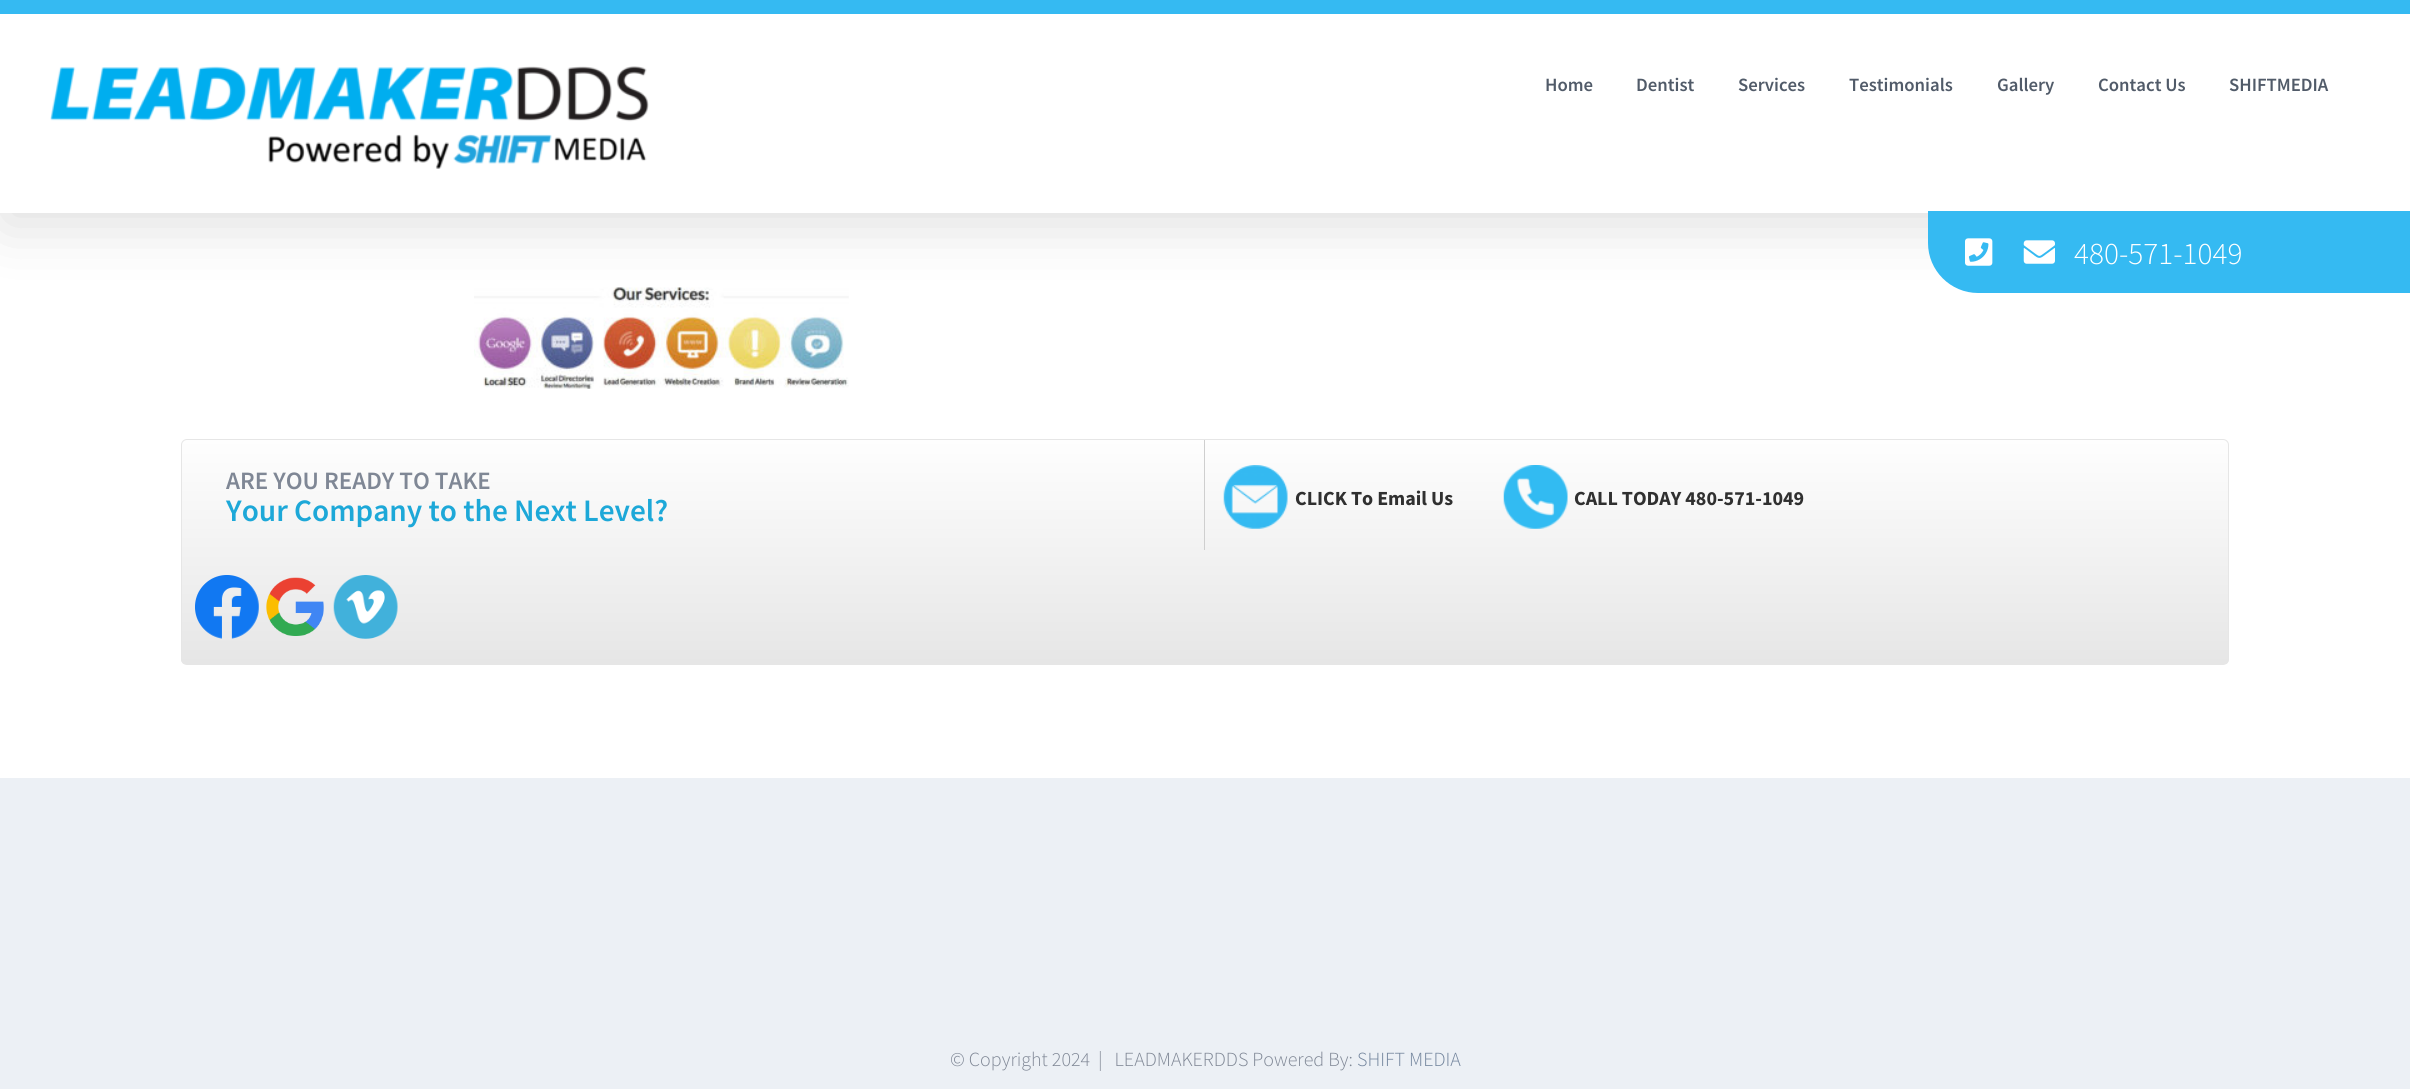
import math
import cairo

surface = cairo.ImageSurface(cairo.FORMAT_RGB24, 2410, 1089)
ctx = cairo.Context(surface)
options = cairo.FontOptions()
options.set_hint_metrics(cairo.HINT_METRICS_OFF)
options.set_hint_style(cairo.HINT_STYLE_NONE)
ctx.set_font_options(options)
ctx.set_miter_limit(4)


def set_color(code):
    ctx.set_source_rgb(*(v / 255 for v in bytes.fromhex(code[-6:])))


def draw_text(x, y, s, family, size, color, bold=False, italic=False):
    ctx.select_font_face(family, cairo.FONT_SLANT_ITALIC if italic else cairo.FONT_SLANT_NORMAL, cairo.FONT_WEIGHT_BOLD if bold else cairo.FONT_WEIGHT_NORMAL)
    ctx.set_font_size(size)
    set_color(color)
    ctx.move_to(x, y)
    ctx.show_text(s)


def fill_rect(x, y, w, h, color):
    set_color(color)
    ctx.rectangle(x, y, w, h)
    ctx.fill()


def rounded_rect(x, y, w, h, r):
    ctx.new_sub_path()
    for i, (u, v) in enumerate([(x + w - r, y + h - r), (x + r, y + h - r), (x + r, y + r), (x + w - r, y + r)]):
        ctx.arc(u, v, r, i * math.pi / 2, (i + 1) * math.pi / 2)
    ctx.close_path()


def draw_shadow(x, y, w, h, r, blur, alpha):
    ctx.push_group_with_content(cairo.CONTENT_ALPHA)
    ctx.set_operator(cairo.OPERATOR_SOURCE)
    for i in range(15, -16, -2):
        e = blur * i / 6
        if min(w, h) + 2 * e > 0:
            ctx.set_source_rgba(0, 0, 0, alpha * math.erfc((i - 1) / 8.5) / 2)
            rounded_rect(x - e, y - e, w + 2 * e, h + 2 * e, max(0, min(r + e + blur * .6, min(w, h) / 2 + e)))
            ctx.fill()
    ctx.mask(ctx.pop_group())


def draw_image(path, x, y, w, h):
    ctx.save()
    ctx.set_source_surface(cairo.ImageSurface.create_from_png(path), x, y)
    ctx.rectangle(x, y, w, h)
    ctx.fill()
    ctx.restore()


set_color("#ffffff")
ctx.paint()
draw_image("assets/img4.png", 474, 287, 375, 102)
set_color("#000000")
draw_shadow(3, 15, 2405, 208, 0, 31, 0.14)
fill_rect(0, 0, 2410, 14, "#35baf2")
fill_rect(0, 14, 2410, 199, "#ffffff")
draw_image("assets/img1.png", 50, 66, 599, 103)
draw_text(1545, 91, "Home", "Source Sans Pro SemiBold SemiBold", 18.75, "#515b69")
draw_text(1636, 91, "Dentist", "Source Sans Pro SemiBold SemiBold", 18.75, "#515b69")
draw_text(1738, 91, "Services", "Source Sans Pro SemiBold SemiBold", 18.75, "#515b69")
draw_text(1849, 91, "Testimonials", "Source Sans Pro SemiBold SemiBold", 18.75, "#515b69")
draw_text(1997, 91, "Gallery", "Source Sans Pro SemiBold SemiBold", 18.75, "#515b69")
draw_text(2098, 91, "Contact Us", "Source Sans Pro SemiBold SemiBold", 18.75, "#515b69")
draw_text(2229, 91, "SHIFTMEDIA", "Source Sans Pro SemiBold SemiBold", 18.75, "#515b69")
set_color("#35baf2")
ctx.new_path()
ctx.move_to(1928, 211)
ctx.line_to(2410, 211)
ctx.line_to(2410, 293)
ctx.line_to(1978, 293)
ctx.curve_to(1950.5, 293, 1928, 270.5, 1928, 243)
ctx.close_path()
ctx.fill()
draw_image("assets/img2.png", 1965, 238, 28, 28)
draw_image("assets/img3.png", 2023, 240, 32, 24)
draw_text(2074, 264, "480-571-1049", "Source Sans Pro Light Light", 31.25, "#ffffff")
ctx.save()
rounded_rect(181, 439, 2048, 226, 6)
ctx.clip()
gradient = cairo.LinearGradient(1205, 440, 1205, 664)
gradient.add_color_stop_rgba(0, 0.996, 0.996, 0.996, 1)
gradient.add_color_stop_rgba(1, 0.902, 0.902, 0.902, 1)
ctx.set_source(gradient)
ctx.rectangle(181, 440, 2048, 224)
ctx.fill()
ctx.restore()
rounded_rect(181.5, 439.5, 2047, 225, 5.5)
set_color("#e6e6e6")
ctx.set_line_width(1)
ctx.stroke()
fill_rect(1204, 440, 1, 110, "#cfcfcf")
draw_text(226, 489, "ARE YOU READY TO TAKE", "Source Sans Pro SemiBold SemiBold", 25, "#7f8795")
draw_text(226, 521, "Your Company to the Next Level?", "Source Sans Pro SemiBold SemiBold", 31.25, "#1da8d8")
draw_image("assets/img5.png", 1223, 465, 65, 64)
draw_text(1295, 505, "CLICK To Email Us", "Source Sans Pro", 20, "#303030", bold=True)
draw_image("assets/img6.png", 1503, 465, 65, 64)
draw_text(1574, 505, "CALL TODAY 480-571-1049", "Source Sans Pro", 20, "#303030", bold=True)
draw_image("assets/img7.png", 195, 575, 64, 64)
draw_image("assets/img8.png", 266, 577, 58, 59)
draw_image("assets/img9.png", 333, 575, 65, 64)
fill_rect(0, 778, 2410, 311, "#ecf0f5")
draw_text(950, 1066, "© Copyright 2024", "Source Sans Pro Light Light", 20, "#7f8795")
draw_text(1098, 1066, "|   LEADMAKERDDS Powered By:", "Source Sans Pro Light Light", 20, "#7f8795")
draw_text(1357, 1066, "SHIFT MEDIA", "Source Sans Pro Light Light", 20, "#72849c")
surface.write_to_png("output.png")
